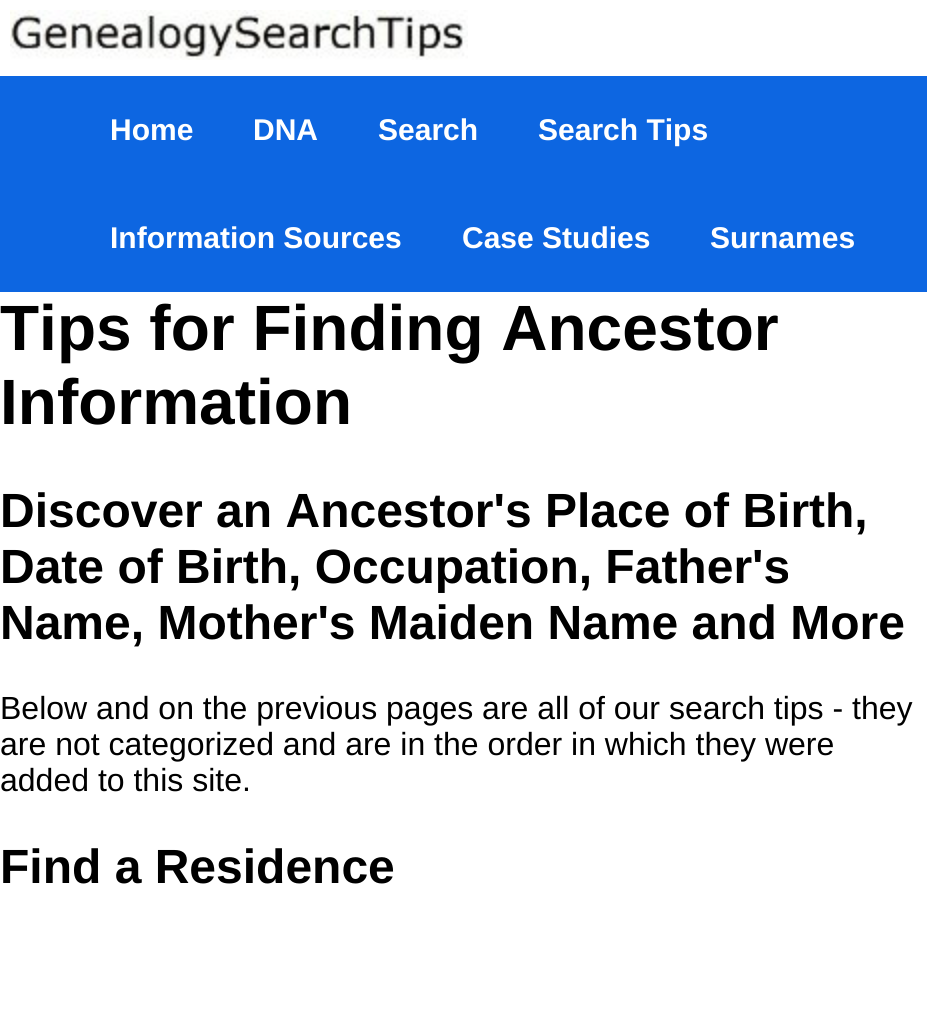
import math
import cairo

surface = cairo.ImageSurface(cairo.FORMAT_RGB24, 927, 1013)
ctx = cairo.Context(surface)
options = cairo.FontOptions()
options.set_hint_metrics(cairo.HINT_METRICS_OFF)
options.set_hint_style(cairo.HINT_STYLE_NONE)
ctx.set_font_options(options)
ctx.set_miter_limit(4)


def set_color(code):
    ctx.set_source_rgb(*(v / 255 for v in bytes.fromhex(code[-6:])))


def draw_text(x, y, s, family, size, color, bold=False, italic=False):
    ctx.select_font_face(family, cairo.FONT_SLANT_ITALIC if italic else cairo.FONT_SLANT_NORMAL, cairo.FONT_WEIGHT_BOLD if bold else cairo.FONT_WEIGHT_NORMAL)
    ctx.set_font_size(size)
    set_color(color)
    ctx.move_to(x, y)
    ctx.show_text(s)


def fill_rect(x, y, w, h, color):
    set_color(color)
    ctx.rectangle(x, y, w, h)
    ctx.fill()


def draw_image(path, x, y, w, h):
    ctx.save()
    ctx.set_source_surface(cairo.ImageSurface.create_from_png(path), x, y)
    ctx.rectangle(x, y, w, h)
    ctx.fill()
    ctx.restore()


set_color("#ffffff")
ctx.paint()
draw_image("assets/img1.png", 10, 10, 458, 50)
fill_rect(0, 76, 927, 216, "#0d66e1")
draw_text(110, 140, "Home", "Liberation Sans", 30, "#ffffff", bold=True)
draw_text(253, 140, "DNA", "Liberation Sans", 30, "#ffffff", bold=True)
draw_text(378, 140, "Search", "Liberation Sans", 30, "#ffffff", bold=True)
draw_text(538, 140, "Search Tips", "Liberation Sans", 30, "#ffffff", bold=True)
draw_text(110, 248, "Information Sources", "Liberation Sans", 30, "#ffffff", bold=True)
draw_text(462, 248, "Case Studies", "Liberation Sans", 30, "#ffffff", bold=True)
draw_text(710, 248, "Surnames", "Liberation Sans", 30, "#ffffff", bold=True)
draw_text(0, 350, "Tips for Finding Ancestor", "Liberation Sans", 64, "#000000", bold=True)
draw_text(0, 424, "Information", "Liberation Sans", 64, "#000000", bold=True)
draw_text(0, 527, "Discover an Ancestor's Place of Birth,", "Liberation Sans", 48, "#000000", bold=True)
draw_text(0, 583, "Date of Birth, Occupation, Father's", "Liberation Sans", 48, "#000000", bold=True)
draw_text(0, 639, "Name, Mother's Maiden Name and More", "Liberation Sans", 48, "#000000", bold=True)
draw_text(0, 719, "Below and on the previous pages are all of our search tips - they", "Liberation Sans", 32, "#000000")
draw_text(0, 755, "are not categorized and are in the order in which they were", "Liberation Sans", 32, "#000000")
draw_text(0, 791, "added to this site.", "Liberation Sans", 32, "#000000")
draw_text(0, 883, "Find a Residence", "Liberation Sans", 48, "#000000", bold=True)
surface.write_to_png("output.png")
